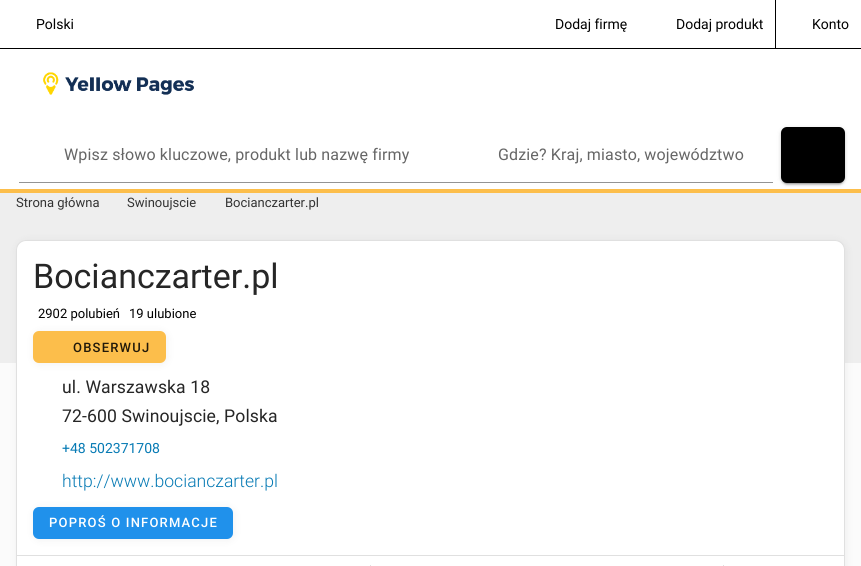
import math
import cairo

surface = cairo.ImageSurface(cairo.FORMAT_RGB24, 861, 566)
ctx = cairo.Context(surface)
options = cairo.FontOptions()
options.set_hint_metrics(cairo.HINT_METRICS_OFF)
options.set_hint_style(cairo.HINT_STYLE_NONE)
ctx.set_font_options(options)
ctx.set_miter_limit(4)


def set_color(code):
    ctx.set_source_rgb(*(v / 255 for v in bytes.fromhex(code[-6:])))


def draw_text(x, y, s, family, size, color, bold=False, italic=False):
    ctx.select_font_face(family, cairo.FONT_SLANT_ITALIC if italic else cairo.FONT_SLANT_NORMAL, cairo.FONT_WEIGHT_BOLD if bold else cairo.FONT_WEIGHT_NORMAL)
    ctx.set_font_size(size)
    set_color(color)
    ctx.move_to(x, y)
    ctx.show_text(s)


def draw_spaced(x, y, s, letter, word):
    ctx.move_to(x, y)
    for ch in s:
        ctx.show_text(ch)
        ctx.rel_move_to(letter + word * (ch == ' '), 0)


def fill_rect(x, y, w, h, color):
    set_color(color)
    ctx.rectangle(x, y, w, h)
    ctx.fill()


def rounded_rect(x, y, w, h, r):
    ctx.new_sub_path()
    for i, (u, v) in enumerate([(x + w - r, y + h - r), (x + r, y + h - r), (x + r, y + r), (x + w - r, y + r)]):
        ctx.arc(u, v, r, i * math.pi / 2, (i + 1) * math.pi / 2)
    ctx.close_path()


def draw_shadow(x, y, w, h, r, blur, alpha):
    ctx.push_group_with_content(cairo.CONTENT_ALPHA)
    ctx.set_operator(cairo.OPERATOR_SOURCE)
    for i in range(15, -16, -2):
        e = blur * i / 6
        if min(w, h) + 2 * e > 0:
            ctx.set_source_rgba(0, 0, 0, alpha * math.erfc((i - 1) / 8.5) / 2)
            rounded_rect(x - e, y - e, w + 2 * e, h + 2 * e, max(0, min(r + e + blur * .6, min(w, h) / 2 + e)))
            ctx.fill()
    ctx.mask(ctx.pop_group())


def draw_image(path, x, y, w, h):
    ctx.save()
    ctx.set_source_surface(cairo.ImageSurface.create_from_png(path), x, y)
    ctx.rectangle(x, y, w, h)
    ctx.fill()
    ctx.restore()


set_color("#fbfbfb")
ctx.paint()
fill_rect(0, 0, 861, 189, "#ffffff")
fill_rect(0, 189, 861, 4, "#fcbe4b")
fill_rect(0, 48, 861, 1, "#000000")
draw_text(36, 29, "Polski", "Roboto", 14, "#000000")
draw_text(555, 29, "Dodaj firmę", "Roboto", 14, "#000000")
draw_text(676, 29, "Dodaj produkt", "Roboto", 14, "#000000")
fill_rect(775, 0, 1, 48, "#000000")
draw_text(812, 29, "Konto", "Roboto", 14, "#000000")
draw_image("assets/img1.png", 43, 72, 151, 23)
ctx.set_font_size(16)
set_color("#666666")
draw_spaced(64, 160, "Wpisz słowo kluczowe, produkt lub nazwę firmy", 0.15, 0)
set_color("#000000")
draw_shadow(781, 128, 64, 56, 6, 2.5, 0.12)
fill_rect(19, 182, 754, 1, "#949494")
set_color("#666666")
draw_spaced(498, 160, "Gdzie? Kraj, miasto, województwo", 0.15, 0)
set_color("#000000")
draw_shadow(781, 129, 64, 56, 6, 1, 0.14)
draw_shadow(783, 132, 60, 52, 4, 0.5, 0.2)
set_color("#000000")
rounded_rect(781, 127, 64, 56, 6)
ctx.fill()
fill_rect(0, 193, 861, 170, "#eeeeee")
draw_text(16, 207, "Strona główna", "Roboto", 13, "#333333")
draw_text(127, 207, "Swinoujscie", "Roboto", 13, "#333333")
draw_text(225, 207, "Bocianczarter.pl", "Roboto", 13, "#333333")
set_color("#000000")
draw_shadow(17, 241, 829, 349, 10, 4.5, 0.06)
set_color("#ffffff")
rounded_rect(16.5, 240.5, 828, 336, 9.5)
ctx.fill_preserve()
set_color("#e0e0e0")
ctx.set_line_width(1)
ctx.stroke()
draw_text(33, 288, "Bocianczarter.pl", "Roboto", 34, "#262626")
draw_text(38, 318, "2902 polubień", "Roboto", 13, "#000000")
draw_text(129, 318, "19 ulubione", "Roboto", 13, "#000000")
set_color("#000000")
draw_shadow(34, 332, 133, 32, 6, 4.5, 0.06)
set_color("#fcbe4b")
rounded_rect(33, 331, 133, 32, 6)
ctx.fill()
ctx.select_font_face("Roboto Medium")
set_color("#21190a")
draw_spaced(73, 352, "OBSERWUJ", 1.2, 0)
ctx.select_font_face("Roboto")
ctx.set_font_size(17.6)
set_color("#262626")
draw_spaced(62, 393, "ul. Warszawska 18", 0.1, 0)
draw_spaced(62, 422, "72-600 Swinoujscie, Polska", 0.1, 0)
draw_text(62, 453, "+48 502371708", "Roboto", 14, "#067ab4")
draw_text(62, 487, "http://www.bocianczarter.pl", "Roboto Light", 17.6, "#067ab4")
set_color("#000000")
draw_shadow(34, 508, 200, 32, 6, 4.5, 0.06)
set_color("#2091eb")
rounded_rect(33, 507, 200, 32, 6)
ctx.fill()
ctx.select_font_face("Roboto Medium")
ctx.set_font_size(13)
set_color("#ffffff")
draw_spaced(49, 527, "POPROŚ O INFORMACJE", 1.2, 0)
fill_rect(17, 555, 827, 1, "#e0e0e0")
fill_rect(370, 565, 1, 1, "#e0e0e0")
fill_rect(723, 565, 1, 1, "#e0e0e0")
surface.write_to_png("output.png")
